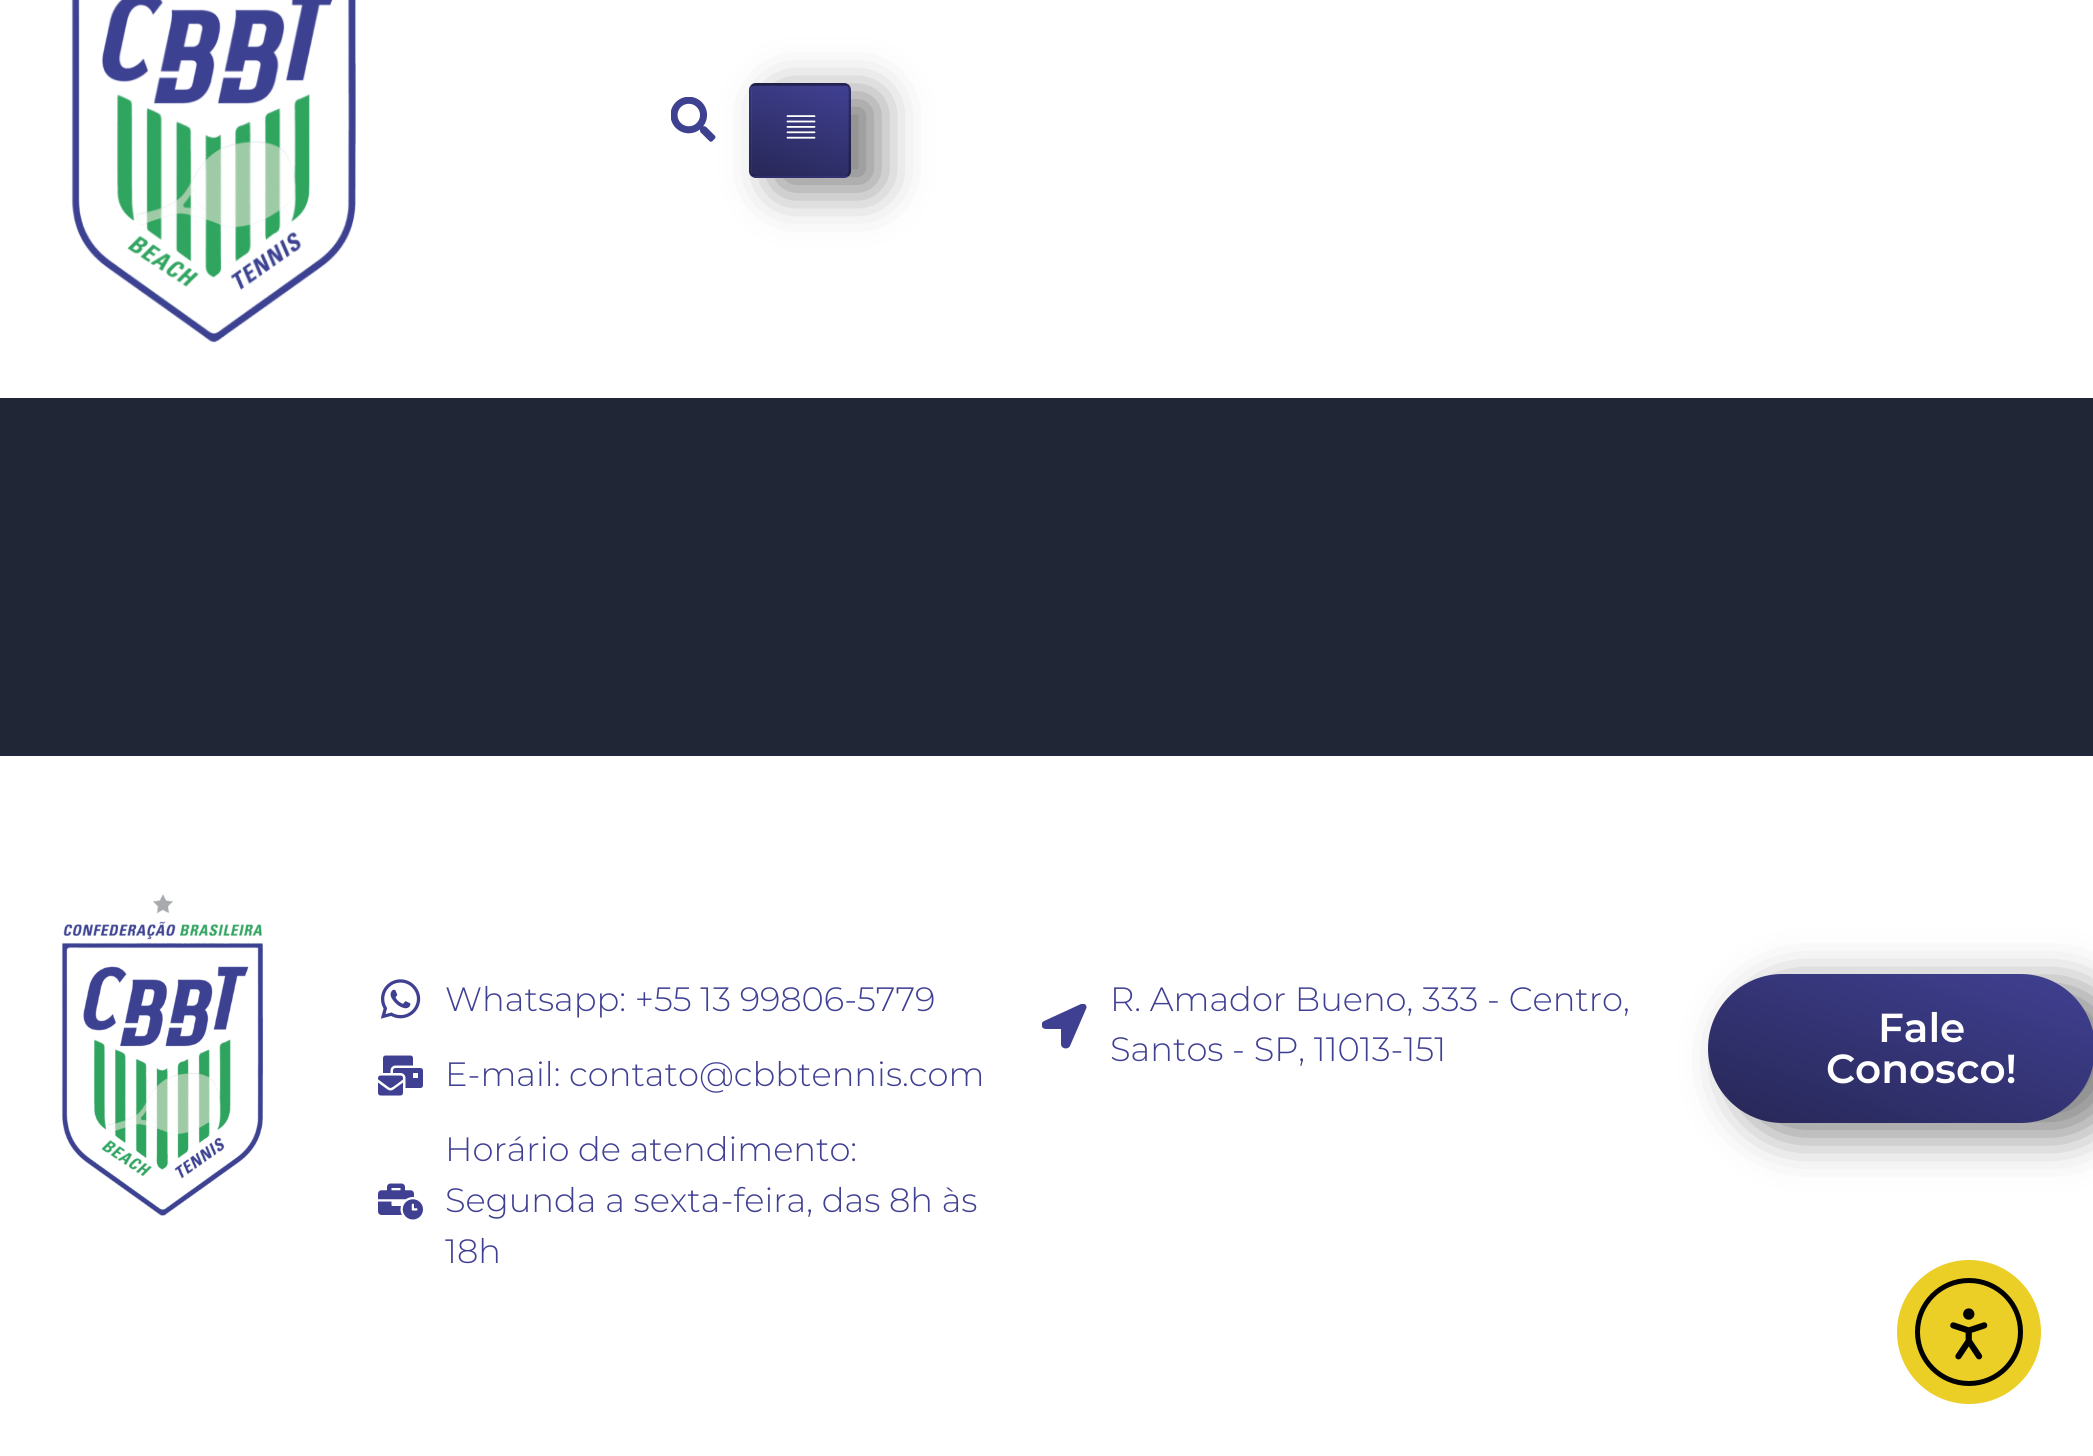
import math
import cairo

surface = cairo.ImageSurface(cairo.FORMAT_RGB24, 2093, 1456)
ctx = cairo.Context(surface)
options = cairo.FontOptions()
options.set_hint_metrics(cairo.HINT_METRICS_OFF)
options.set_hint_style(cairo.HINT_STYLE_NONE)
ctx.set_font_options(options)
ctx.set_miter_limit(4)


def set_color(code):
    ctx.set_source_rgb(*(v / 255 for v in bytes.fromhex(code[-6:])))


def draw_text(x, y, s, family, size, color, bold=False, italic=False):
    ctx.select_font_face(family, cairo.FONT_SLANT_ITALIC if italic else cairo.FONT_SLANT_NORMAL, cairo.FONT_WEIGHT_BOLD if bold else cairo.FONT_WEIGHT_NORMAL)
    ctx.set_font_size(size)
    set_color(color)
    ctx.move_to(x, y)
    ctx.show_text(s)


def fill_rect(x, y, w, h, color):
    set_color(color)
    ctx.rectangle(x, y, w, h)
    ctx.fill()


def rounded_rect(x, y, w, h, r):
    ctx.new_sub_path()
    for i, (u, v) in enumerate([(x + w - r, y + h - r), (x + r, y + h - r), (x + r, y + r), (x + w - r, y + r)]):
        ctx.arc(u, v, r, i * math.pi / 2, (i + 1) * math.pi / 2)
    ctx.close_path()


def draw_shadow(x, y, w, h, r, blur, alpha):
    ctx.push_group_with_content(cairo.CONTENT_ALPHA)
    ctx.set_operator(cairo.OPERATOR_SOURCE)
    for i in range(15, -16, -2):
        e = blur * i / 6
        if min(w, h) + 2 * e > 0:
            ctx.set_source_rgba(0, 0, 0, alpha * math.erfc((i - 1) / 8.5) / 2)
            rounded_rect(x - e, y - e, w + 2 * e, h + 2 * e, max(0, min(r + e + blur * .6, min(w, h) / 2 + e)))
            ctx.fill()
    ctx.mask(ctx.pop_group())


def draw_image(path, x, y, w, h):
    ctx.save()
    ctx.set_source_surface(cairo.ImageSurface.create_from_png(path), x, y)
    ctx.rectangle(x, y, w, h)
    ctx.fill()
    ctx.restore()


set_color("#202635")
ctx.paint()
fill_rect(0, 0, 2093, 398, "#ffffff")
draw_image("assets/img1.png", 71, 0, 285, 343)
draw_image("assets/img2.png", 671, 97, 45, 45)
set_color("#000000")
draw_shadow(776, 95, 102, 94, 7, 23.5, 0.5)
ctx.save()
rounded_rect(749, 83, 102, 95, 7)
ctx.clip()
gradient = cairo.LinearGradient(684, 96, 722, -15)
gradient.add_color_stop_rgba(0, 0.153, 0.153, 0.341, 1)
gradient.add_color_stop_rgba(1, 0.251, 0.251, 0.576, 1)
ctx.set_source(gradient)
ctx.rectangle(749, 84, 3, 2)
ctx.fill()
gradient = cairo.LinearGradient(781, 96, 819, -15)
gradient.add_color_stop_rgba(0, 0.153, 0.153, 0.341, 1)
gradient.add_color_stop_rgba(1, 0.251, 0.251, 0.576, 1)
ctx.set_source(gradient)
ctx.rectangle(752, 83, 96, 3)
ctx.fill()
gradient = cairo.LinearGradient(878, 96, 916, -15)
gradient.add_color_stop_rgba(0, 0.153, 0.153, 0.341, 1)
gradient.add_color_stop_rgba(1, 0.251, 0.251, 0.576, 1)
ctx.set_source(gradient)
ctx.rectangle(848, 84, 3, 2)
ctx.fill()
gradient = cairo.LinearGradient(684, 186, 722, 75)
gradient.add_color_stop_rgba(0, 0.153, 0.153, 0.341, 1)
gradient.add_color_stop_rgba(1, 0.251, 0.251, 0.576, 1)
ctx.set_source(gradient)
ctx.rectangle(749, 86, 3, 90)
ctx.fill()
ctx.restore()
gradient = cairo.LinearGradient(781, 186, 819, 75)
gradient.add_color_stop_rgba(0, 0.153, 0.153, 0.341, 1)
gradient.add_color_stop_rgba(1, 0.251, 0.251, 0.576, 1)
ctx.set_source(gradient)
ctx.rectangle(752, 86, 96, 90)
ctx.fill()
ctx.save()
rounded_rect(749, 83, 102, 95, 7)
ctx.clip()
gradient = cairo.LinearGradient(878, 186, 916, 75)
gradient.add_color_stop_rgba(0, 0.153, 0.153, 0.341, 1)
gradient.add_color_stop_rgba(1, 0.251, 0.251, 0.576, 1)
ctx.set_source(gradient)
ctx.rectangle(848, 86, 3, 90)
ctx.fill()
gradient = cairo.LinearGradient(684, 276, 722, 165)
gradient.add_color_stop_rgba(0, 0.153, 0.153, 0.341, 1)
gradient.add_color_stop_rgba(1, 0.251, 0.251, 0.576, 1)
ctx.set_source(gradient)
ctx.rectangle(749, 176, 3, 1)
ctx.fill()
gradient = cairo.LinearGradient(781, 276, 819, 165)
gradient.add_color_stop_rgba(0, 0.153, 0.153, 0.341, 1)
gradient.add_color_stop_rgba(1, 0.251, 0.251, 0.576, 1)
ctx.set_source(gradient)
ctx.rectangle(752, 176, 96, 2)
ctx.fill()
gradient = cairo.LinearGradient(878, 276, 916, 165)
gradient.add_color_stop_rgba(0, 0.153, 0.153, 0.341, 1)
gradient.add_color_stop_rgba(1, 0.251, 0.251, 0.576, 1)
ctx.set_source(gradient)
ctx.rectangle(848, 176, 3, 1)
ctx.fill()
ctx.restore()
rounded_rect(750, 84, 100, 93, 6)
ctx.set_source_rgba(0, 0, 0, 0.2)
ctx.stroke()
draw_image("assets/img3.png", 786, 115, 30, 24)
fill_rect(0, 756, 2093, 700, "#ffffff")
draw_image("assets/img4.png", 61, 894, 203, 322)
draw_image("assets/img5.png", 380, 979, 41, 40)
draw_text(445, 1011, "Whatsapp: +55 13 99806-5779", "Montserrat Light", 33.75, "#404093")
draw_image("assets/img6.png", 378, 1055, 45, 41)
draw_text(445, 1086, "E-mail: contato@cbbtennis.com", "Montserrat Light", 33.75, "#404093")
draw_image("assets/img7.png", 378, 1183, 45, 37)
draw_text(445, 1161, "Horário de atendimento:", "Montserrat Light", 33.75, "#404093")
draw_text(445, 1212, "Segunda a sexta-feira, das 8h às", "Montserrat Light", 33.75, "#404093")
draw_text(445, 1263, "18h", "Montserrat Light", 33.75, "#404093")
ctx.save()
ctx.rectangle(1042, 1004, 45, 45)
ctx.clip()
ctx.new_path()
ctx.move_to(1081, 1004)
ctx.line_to(1044, 1021)
ctx.curve_to(1040, 1023, 1041, 1029, 1046, 1029)
ctx.line_to(1061, 1029)
ctx.line_to(1061, 1044)
ctx.curve_to(1061, 1049, 1068, 1050, 1070, 1046)
ctx.line_to(1086, 1009)
ctx.curve_to(1088, 1006, 1084, 1002, 1081, 1004)
ctx.close_path()
ctx.fill()
ctx.restore()
draw_text(1110, 1011, "R. Amador Bueno, 333 - Centro,", "Montserrat Light", 33.75, "#404093")
draw_text(1110, 1061, "Santos - SP, 11013-151", "Montserrat Light", 33.75, "#404093")
set_color("#000000")
draw_shadow(1735, 986, 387, 148, 74, 23.5, 0.5)
gradient = cairo.LinearGradient(1858, 1174, 1945, 923)
gradient.add_color_stop_rgba(0, 0.153, 0.153, 0.341, 1)
gradient.add_color_stop_rgba(1, 0.251, 0.251, 0.576, 1)
ctx.set_source(gradient)
rounded_rect(1708, 974, 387, 149, 74.5)
ctx.fill()
draw_text(1878, 1042, "Fale", "Montserrat SemiBold", 40.5, "#ffffff")
draw_text(1826, 1083, "Conosco!", "Montserrat SemiBold", 40.5, "#ffffff")
set_color("#ebce26")
ctx.new_path()
ctx.arc(1969, 1332, 72, 0, 2 * math.pi)
ctx.fill()
ctx.arc(1969, 1332, 51.5, 0, 2 * math.pi)
set_color("#000000")
ctx.set_line_width(5)
ctx.stroke()
draw_image("assets/img8.png", 1950, 1308, 38, 52)
surface.write_to_png("output.png")
